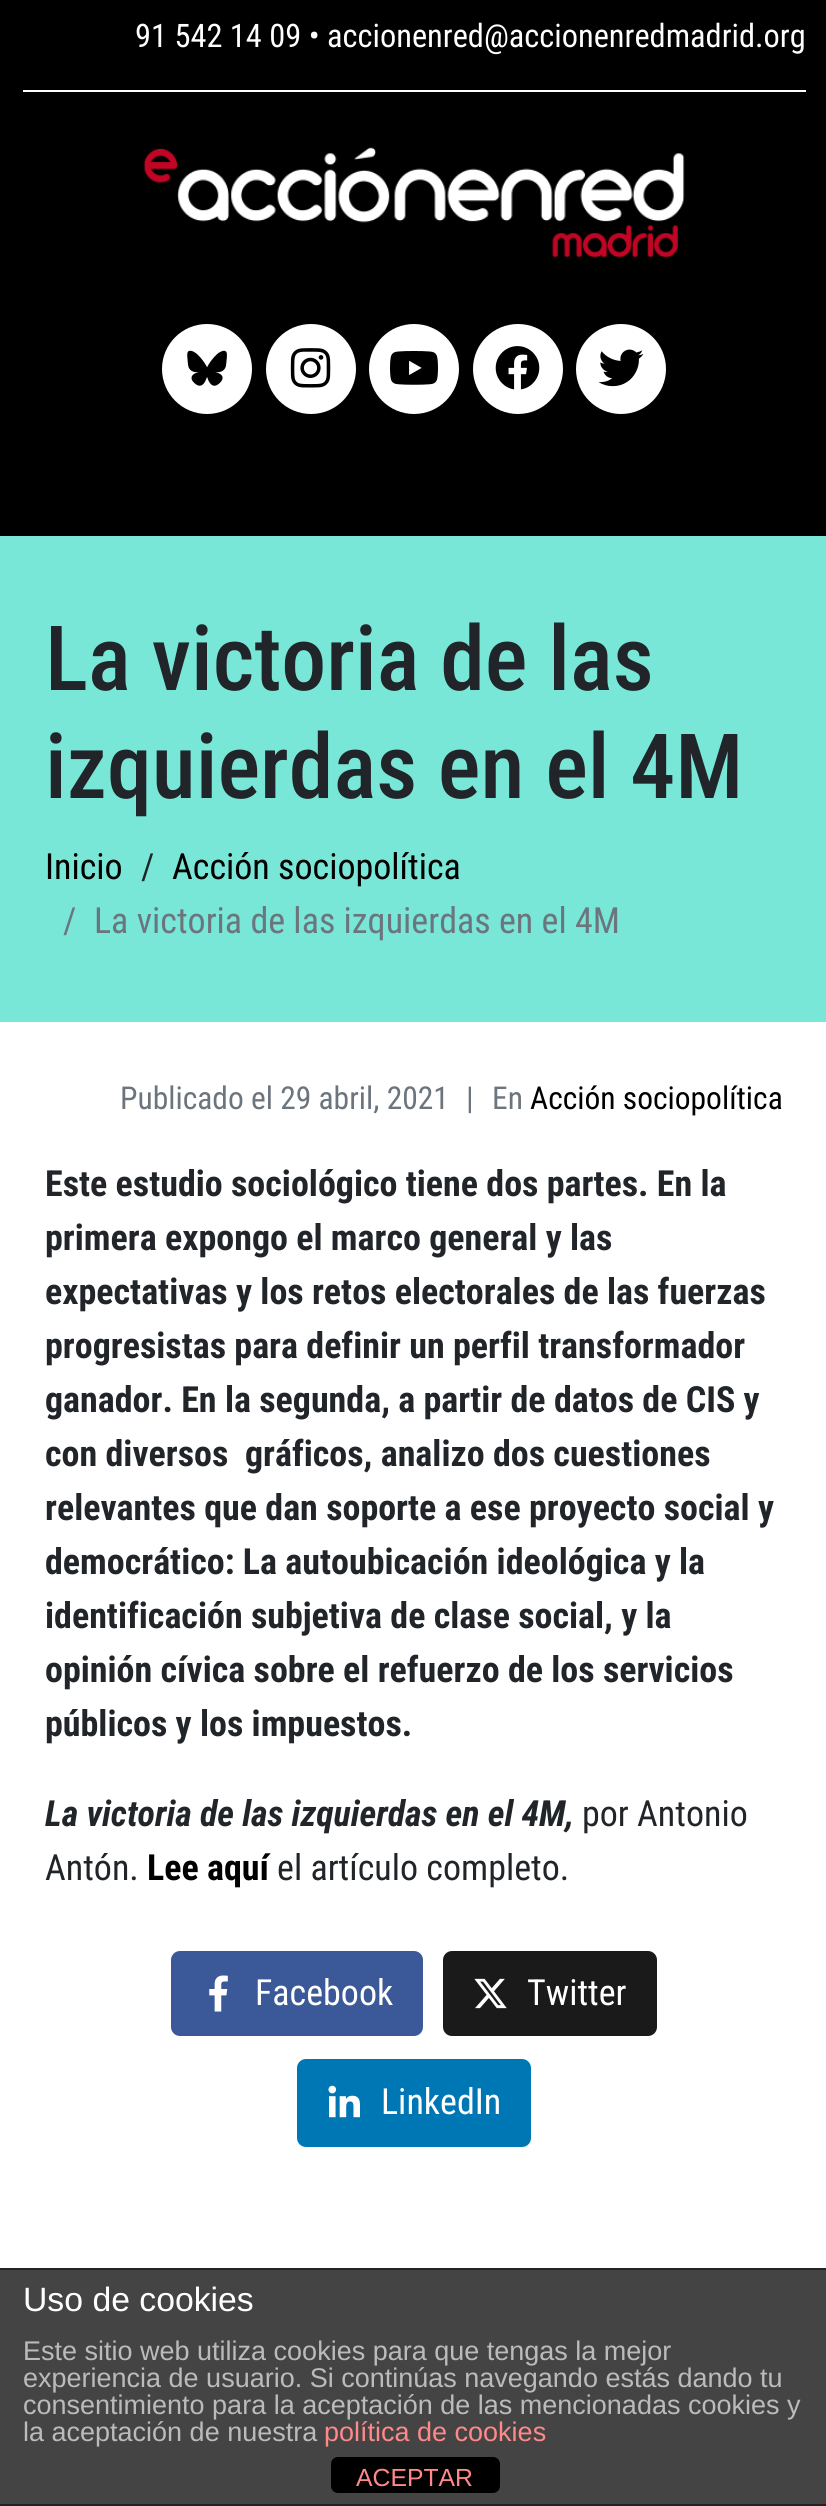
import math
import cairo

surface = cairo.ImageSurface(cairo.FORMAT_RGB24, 826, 2506)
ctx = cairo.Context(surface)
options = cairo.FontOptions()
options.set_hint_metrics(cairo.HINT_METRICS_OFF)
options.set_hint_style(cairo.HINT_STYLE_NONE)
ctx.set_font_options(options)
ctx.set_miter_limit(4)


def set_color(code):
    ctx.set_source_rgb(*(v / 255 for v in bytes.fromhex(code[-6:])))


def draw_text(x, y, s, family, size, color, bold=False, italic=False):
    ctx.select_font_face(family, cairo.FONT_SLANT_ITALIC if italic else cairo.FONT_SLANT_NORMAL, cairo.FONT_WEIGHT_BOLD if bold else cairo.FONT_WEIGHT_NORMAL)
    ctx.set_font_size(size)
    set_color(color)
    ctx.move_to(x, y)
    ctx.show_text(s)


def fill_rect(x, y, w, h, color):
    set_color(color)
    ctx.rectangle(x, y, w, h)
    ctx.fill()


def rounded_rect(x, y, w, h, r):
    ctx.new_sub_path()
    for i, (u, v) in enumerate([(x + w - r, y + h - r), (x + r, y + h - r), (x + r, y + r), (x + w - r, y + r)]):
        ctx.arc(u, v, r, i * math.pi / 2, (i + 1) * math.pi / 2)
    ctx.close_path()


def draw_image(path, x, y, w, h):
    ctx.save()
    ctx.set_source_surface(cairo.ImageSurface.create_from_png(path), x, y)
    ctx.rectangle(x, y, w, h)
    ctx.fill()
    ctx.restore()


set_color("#000000")
ctx.paint()
fill_rect(23, 90, 783, 2, "#ffffff")
draw_text(135, 47, "91 542 14 09 • accionenred@accionenredmadrid.org", "Roboto Condensed", 32.4, "#ffffff")
draw_image("assets/img1.png", 143, 147, 542, 111)
ctx.arc(207, 369, 45, 0, 2 * math.pi)
ctx.fill()
draw_image("assets/img2.png", 187, 350, 40, 36)
ctx.arc(311, 369, 45, 0, 2 * math.pi)
ctx.fill()
draw_image("assets/img3.png", 290, 348, 41, 40)
ctx.arc(414, 369, 45, 0, 2 * math.pi)
ctx.fill()
draw_image("assets/img4.png", 390, 351, 48, 34)
ctx.arc(518, 369, 45, 0, 2 * math.pi)
ctx.fill()
draw_image("assets/img5.png", 495, 346, 45, 44)
ctx.arc(621, 369, 45, 0, 2 * math.pi)
ctx.fill()
draw_image("assets/img6.png", 598, 349, 46, 38)
fill_rect(0, 1022, 826, 1246, "#ffffff")
fill_rect(0, 536, 826, 486, "#78e7d7")
draw_text(45, 690, "La victoria de las", "Roboto Condensed Medium", 90, "#212529")
draw_text(45, 798, "izquierdas en el 4M", "Roboto Condensed Medium", 90, "#212529")
draw_text(45, 879, "Inicio", "Roboto Condensed", 36, "#000000")
draw_text(141, 879, "/", "Roboto Condensed", 36, "#212529")
draw_text(172, 879, "Acción sociopolítica", "Roboto Condensed", 36, "#000000")
draw_text(63, 933, "/", "Roboto Condensed", 36, "#6c757d")
draw_text(94, 933, "La victoria de las izquierdas en el 4M", "Roboto Condensed", 36, "#6c757d")
draw_text(120, 1109, "Publicado el 29 abril, 2021", "Roboto Condensed", 31.5, "#6c757d")
draw_text(466, 1109, "|", "Roboto Condensed", 31.5, "#6c757d")
draw_text(492, 1109, "En", "Roboto Condensed", 31.5, "#6c757d")
draw_text(530, 1109, "Acción sociopolítica", "Roboto Condensed", 31.5, "#000000")
draw_text(45, 1196, "Este estudio sociológico tiene dos partes. En la", "Roboto Condensed", 36, "#212529", bold=True)
draw_text(45, 1250, "primera expongo el marco general y las", "Roboto Condensed", 36, "#212529", bold=True)
draw_text(45, 1304, "expectativas y los retos electorales de las fuerzas", "Roboto Condensed", 36, "#212529", bold=True)
draw_text(45, 1358, "progresistas para definir un perfil transformador", "Roboto Condensed", 36, "#212529", bold=True)
draw_text(45, 1412, "ganador. En la segunda, a partir de datos de CIS y", "Roboto Condensed", 36, "#212529", bold=True)
draw_text(45, 1466, "con diversos  gráficos, analizo dos cuestiones", "Roboto Condensed", 36, "#212529", bold=True)
draw_text(45, 1520, "relevantes que dan soporte a ese proyecto social y", "Roboto Condensed", 36, "#212529", bold=True)
draw_text(45, 1574, "democrático: La autoubicación ideológica y la", "Roboto Condensed", 36, "#212529", bold=True)
draw_text(45, 1628, "identificación subjetiva de clase social, y la", "Roboto Condensed", 36, "#212529", bold=True)
draw_text(45, 1682, "opinión cívica sobre el refuerzo de los servicios", "Roboto Condensed", 36, "#212529", bold=True)
draw_text(45, 1736, "públicos y los impuestos.", "Roboto Condensed", 36, "#212529", bold=True)
draw_text(45, 1826, "La victoria de las izquierdas en el 4M,", "Roboto Condensed", 36, "#212529", bold=True, italic=True)
draw_text(582, 1826, "por Antonio", "Roboto Condensed", 36, "#212529")
draw_text(45, 1880, "Antón.", "Roboto Condensed", 36, "#212529")
draw_text(147, 1880, "Lee aquí", "Roboto Condensed", 36, "#000000", bold=True)
draw_text(277, 1880, "el artículo completo.", "Roboto Condensed", 36, "#212529")
set_color("#3b5998")
rounded_rect(171, 1951, 252, 85, 9)
ctx.fill()
draw_image("assets/img7.png", 209, 1975, 19, 37)
draw_text(255, 2005, "Facebook", "Roboto Condensed", 36, "#ffffff")
set_color("#1a1a1a")
rounded_rect(443, 1951, 214, 85, 9)
ctx.fill()
draw_image("assets/img8.png", 474, 1978, 33, 31)
draw_text(527, 2005, "Twitter", "Roboto Condensed", 36, "#ffffff")
set_color("#0077b5")
rounded_rect(297, 2059, 234, 88, 9)
ctx.fill()
draw_image("assets/img9.png", 328, 2085, 32, 33)
draw_text(381, 2114, "LinkedIn", "Roboto Condensed", 36, "#ffffff")
fill_rect(0, 2270, 826, 234, "#444444")
fill_rect(0, 2268, 826, 2, "#222222")
fill_rect(0, 2504, 826, 2, "#222222")
draw_text(23, 2311, "Uso de cookies", "Liberation Sans", 33.75, "#ffffff")
draw_text(23, 2360, "Este sitio web utiliza cookies para que tengas la mejor", "Liberation Sans", 27, "#bbbbbb")
draw_text(23, 2387, "experiencia de usuario. Si continúas navegando estás dando tu", "Liberation Sans", 27, "#bbbbbb")
draw_text(23, 2414, "consentimiento para la aceptación de las mencionadas cookies y", "Liberation Sans", 27, "#bbbbbb")
draw_text(23, 2441, "la aceptación de nuestra", "Liberation Sans", 27, "#bbbbbb")
draw_text(324, 2441, "política de cookies", "Liberation Sans", 27, "#ff8888")
set_color("#000000")
rounded_rect(331, 2457, 169, 36, 7)
ctx.fill()
draw_text(356, 2486, "ACEPTAR", "Liberation Sans", 24.75, "#ff8888")
surface.write_to_png("output.png")
